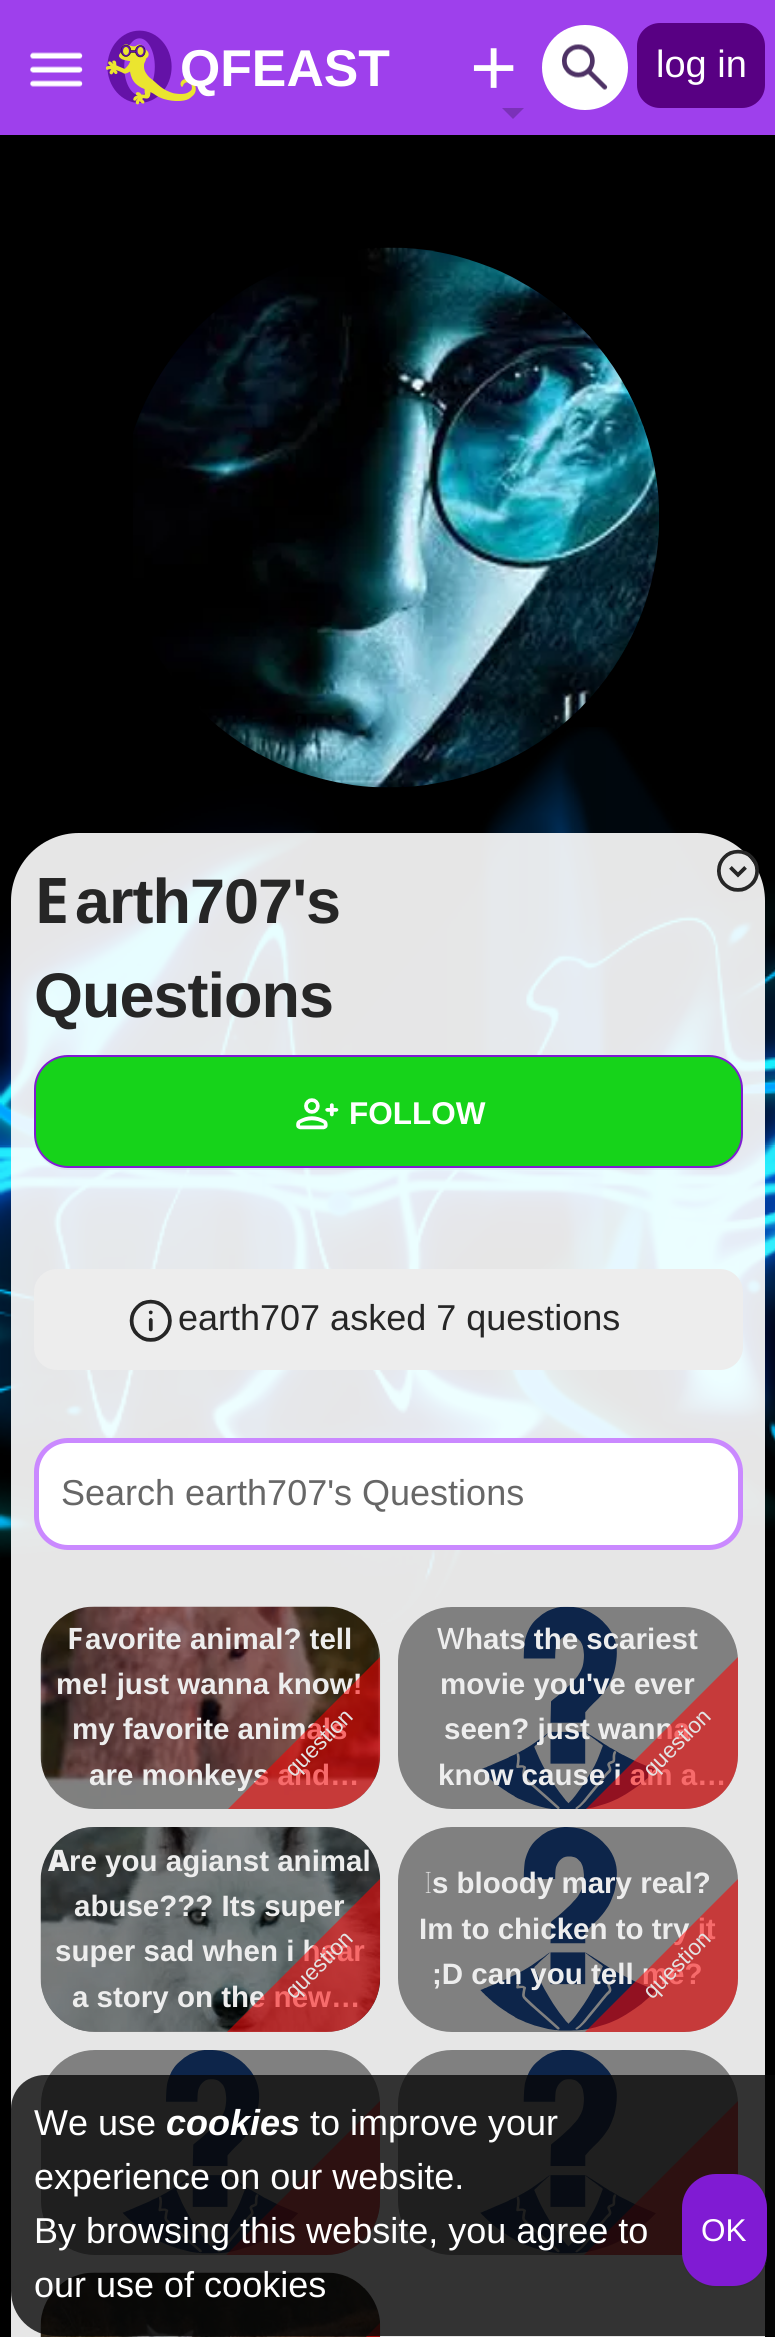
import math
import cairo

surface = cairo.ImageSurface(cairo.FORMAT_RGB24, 775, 2337)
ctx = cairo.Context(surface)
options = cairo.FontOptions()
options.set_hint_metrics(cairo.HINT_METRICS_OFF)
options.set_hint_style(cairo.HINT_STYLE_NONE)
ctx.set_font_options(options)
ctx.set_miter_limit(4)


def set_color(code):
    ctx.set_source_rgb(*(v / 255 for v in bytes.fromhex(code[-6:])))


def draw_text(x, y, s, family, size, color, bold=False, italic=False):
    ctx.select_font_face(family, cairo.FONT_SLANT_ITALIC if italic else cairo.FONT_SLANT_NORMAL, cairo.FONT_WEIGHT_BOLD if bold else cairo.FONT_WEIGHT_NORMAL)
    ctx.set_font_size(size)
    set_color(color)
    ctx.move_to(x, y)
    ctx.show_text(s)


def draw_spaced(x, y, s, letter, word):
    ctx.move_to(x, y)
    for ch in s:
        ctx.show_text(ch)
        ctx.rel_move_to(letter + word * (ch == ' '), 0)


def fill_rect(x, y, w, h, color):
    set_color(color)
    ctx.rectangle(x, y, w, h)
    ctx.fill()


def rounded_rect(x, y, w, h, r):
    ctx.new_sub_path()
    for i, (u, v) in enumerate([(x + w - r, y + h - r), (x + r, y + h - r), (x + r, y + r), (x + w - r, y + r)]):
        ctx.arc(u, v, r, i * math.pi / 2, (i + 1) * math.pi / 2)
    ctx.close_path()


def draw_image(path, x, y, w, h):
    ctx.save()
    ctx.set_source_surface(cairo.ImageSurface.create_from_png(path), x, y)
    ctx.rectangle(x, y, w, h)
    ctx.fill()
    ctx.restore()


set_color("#000000")
ctx.paint()
draw_image("assets/img1.png", 0, 727, 775, 901)
fill_rect(0, 0, 775, 135, "#9e40ec")
draw_image("assets/img2.png", 30, 52, 53, 35)
draw_image("assets/img3.png", 106, 30, 90, 75)
draw_text(180, 86, "QFEAST", "Liberation Sans", 51.75, "#ffffff", bold=True)
draw_text(470, 95, "+", "Liberation Sans", 81, "#ffffff")
set_color("#7b31b9")
ctx.new_path()
ctx.move_to(502, 108)
ctx.line_to(524, 108)
ctx.line_to(513, 119)
ctx.close_path()
ctx.fill()
set_color("#ffffff")
rounded_rect(542, 25, 86, 85, 42.5)
ctx.fill()
draw_image("assets/img4.png", 562, 44, 46, 46)
set_color("#580083")
rounded_rect(637, 23, 128, 85, 23)
ctx.fill()
draw_text(656, 77, "log in", "Liberation Sans", 38, "#ffffff")
ctx.set_source_rgba(1, 1, 1, 0.9)
rounded_rect(11, 833, 754, 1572, 68)
ctx.fill()
ctx.select_font_face("Noto Sans", cairo.FONT_SLANT_NORMAL, cairo.FONT_WEIGHT_BOLD)
ctx.set_font_size(63)
set_color("#262626")
draw_spaced(34, 923, "E", -1, 0)
ctx.select_font_face("Liberation Sans", cairo.FONT_SLANT_NORMAL, cairo.FONT_WEIGHT_BOLD)
draw_spaced(75, 923, "arth707's", -1, 0)
draw_spaced(34, 1017, "Questions", -1, 0)
set_color("#ededed")
rounded_rect(34, 1269, 709, 101, 23)
ctx.fill()
draw_image("assets/img5.png", 129, 1299, 43, 43)
draw_text(178, 1330, "earth707 asked 7 questions", "Liberation Sans", 36, "#262626")
set_color("#ffffff")
rounded_rect(36.5, 1440.5, 704, 107, 31.5)
ctx.fill_preserve()
set_color("#ca89ff")
ctx.set_line_width(5)
ctx.stroke()
draw_text(61, 1505, "Search earth707's Questions", "Liberation Sans", 36, "#676767")
draw_image("assets/img6.png", 40, 1606, 341, 203)
draw_text(67, 1649, "F", "Noto Sans", 29.5, "#ededed", bold=True)
draw_text(85, 1649, "avorite animal? tell", "Liberation Sans", 29.5, "#ededed", bold=True)
draw_text(56, 1694, "me! just wanna know!", "Liberation Sans", 29.5, "#ededed", bold=True)
draw_text(72, 1739, "my favorite animals", "Liberation Sans", 29.5, "#ededed", bold=True)
draw_text(89, 1785, "are monkeys and…", "Liberation Sans", 29.5, "#ededed", bold=True)
ctx.set_source_rgba(1, 0, 0, 0.55)
ctx.new_path()
ctx.move_to(380, 1657)
ctx.line_to(380, 1755)
ctx.curve_to(380, 1785, 356, 1809, 326, 1809)
ctx.line_to(228, 1809)
ctx.close_path()
ctx.fill()
ctx.save()
ctx.translate(294, 1778)
ctx.rotate(-45 * math.pi / 180)
draw_text(0, 0, "question", "Liberation Sans", 22.5, "#e3e3e3")
ctx.restore()
set_color("#808080")
rounded_rect(398, 1607, 340, 202, 54)
ctx.fill()
draw_image("assets/img7.png", 480, 1606, 176, 203)
draw_text(437, 1649, "W", "Noto Sans Medium", 29.5, "#ededed")
draw_text(465, 1649, "hats the scariest", "Liberation Sans", 29.5, "#ededed", bold=True)
draw_text(440, 1694, "movie you've ever", "Liberation Sans", 29.5, "#ededed", bold=True)
draw_text(444, 1739, "seen? just wanna", "Liberation Sans", 29.5, "#ededed", bold=True)
draw_text(438, 1785, "know cause i am a…", "Liberation Sans", 29.5, "#ededed", bold=True)
ctx.set_source_rgba(1, 0, 0, 0.55)
ctx.new_path()
ctx.move_to(738, 1657)
ctx.line_to(738, 1755)
ctx.curve_to(738, 1785, 714, 1809, 684, 1809)
ctx.line_to(586, 1809)
ctx.close_path()
ctx.fill()
ctx.save()
ctx.translate(652, 1778)
ctx.rotate(-45 * math.pi / 180)
draw_text(0, 0, "question", "Liberation Sans", 22.5, "#e3e3e3")
ctx.restore()
set_color("#808080")
rounded_rect(41, 1827, 339, 205, 54)
ctx.fill()
draw_image("assets/img8.png", 40, 1827, 341, 205)
draw_text(48, 1871, "A", "Noto Sans Black", 29.5, "#ededed")
draw_text(69, 1871, "re you agianst animal", "Liberation Sans", 29.5, "#ededed", bold=True)
draw_text(74, 1916, "abuse??? Its super", "Liberation Sans", 29.5, "#ededed", bold=True)
draw_text(55, 1961, "super sad when i hear", "Liberation Sans", 29.5, "#ededed", bold=True)
draw_text(72, 2007, "a story on the new…", "Liberation Sans", 29.5, "#ededed", bold=True)
ctx.set_source_rgba(1, 0, 0, 0.55)
ctx.new_path()
ctx.move_to(380, 1879)
ctx.line_to(380, 1978)
ctx.curve_to(380, 2008, 356, 2032, 326, 2032)
ctx.line_to(227, 2032)
ctx.close_path()
ctx.fill()
ctx.save()
ctx.translate(294, 2000)
ctx.rotate(-45 * math.pi / 180)
draw_text(0, 0, "question", "Liberation Sans", 22.5, "#e3e3e3")
ctx.restore()
set_color("#808080")
rounded_rect(398, 1827, 340, 205, 54)
ctx.fill()
draw_image("assets/img9.png", 480, 1827, 176, 204)
draw_text(424, 1893, "I", "Noto Sans Thin", 29.5, "#ededed")
draw_text(432, 1893, "s bloody mary real?", "Liberation Sans", 29.5, "#ededed", bold=True)
draw_text(419, 1939, "Im to chicken to try it", "Liberation Sans", 29.5, "#ededed", bold=True)
draw_text(432, 1984, ";D can you tell me?", "Liberation Sans", 29.5, "#ededed", bold=True)
ctx.set_source_rgba(1, 0, 0, 0.55)
ctx.new_path()
ctx.move_to(738, 1879)
ctx.line_to(738, 1978)
ctx.curve_to(738, 2008, 714, 2032, 684, 2032)
ctx.line_to(585, 2032)
ctx.close_path()
ctx.fill()
ctx.save()
ctx.translate(652, 2000)
ctx.rotate(-45 * math.pi / 180)
draw_text(0, 0, "question", "Liberation Sans", 22.5, "#e3e3e3")
ctx.restore()
set_color("#808080")
rounded_rect(41, 2050, 339, 205, 54)
ctx.fill()
draw_image("assets/img10.png", 122, 2050, 176, 204)
ctx.set_source_rgba(1, 0, 0, 0.55)
ctx.new_path()
ctx.move_to(380, 2101)
ctx.line_to(380, 2201)
ctx.curve_to(380, 2231, 356, 2255, 326, 2255)
ctx.line_to(226, 2255)
ctx.close_path()
ctx.fill()
set_color("#808080")
rounded_rect(398, 2050, 340, 205, 54)
ctx.fill()
draw_image("assets/img11.png", 480, 2050, 176, 204)
ctx.set_source_rgba(1, 0, 0, 0.55)
ctx.new_path()
ctx.move_to(738, 2101)
ctx.line_to(738, 2201)
ctx.curve_to(738, 2231, 714, 2255, 684, 2255)
ctx.line_to(584, 2255)
ctx.close_path()
ctx.fill()
draw_image("assets/img12.png", 40, 2272, 341, 65)
ctx.new_path()
ctx.move_to(380, 2323)
ctx.line_to(380, 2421)
ctx.curve_to(380, 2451, 356, 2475, 326, 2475)
ctx.line_to(228, 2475)
ctx.close_path()
ctx.fill()
draw_image("assets/img13.png", 133, 247, 526, 541)
draw_image("assets/img14.png", 717, 849, 42, 43)
ctx.set_source_rgba(0, 0, 0, 0.05)
ctx.new_path()
ctx.move_to(34, 1139)
ctx.curve_to(36, 1156, 50, 1170, 68, 1170)
ctx.line_to(709, 1170)
ctx.curve_to(728, 1170, 743, 1155, 743, 1136)
ctx.line_to(743, 1092)
ctx.line_to(742, 1085)
ctx.line_to(742, 1134)
ctx.curve_to(742, 1153, 727, 1168, 709, 1168)
ctx.line_to(68, 1168)
ctx.curve_to(51, 1168, 37, 1155, 34, 1139)
ctx.close_path()
ctx.fill()
set_color("#16d31a")
rounded_rect(35, 1056, 707, 111, 33)
ctx.fill_preserve()
set_color("#801bd3")
ctx.set_line_width(2)
ctx.stroke()
draw_image("assets/img15.png", 296, 1098, 43, 32)
draw_text(349, 1124, "FOLLOW", "Liberation Sans", 31.5, "#ffffff", bold=True)
ctx.set_source_rgba(0.027, 0.027, 0.027, 0.8)
ctx.new_path()
ctx.move_to(45, 2075)
ctx.line_to(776, 2075)
ctx.line_to(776, 2336)
ctx.line_to(56, 2336)
ctx.curve_to(31, 2336, 11, 2316, 11, 2291)
ctx.line_to(11, 2109)
ctx.curve_to(11, 2090, 26, 2075, 45, 2075)
ctx.close_path()
ctx.fill()
draw_text(34, 2135, "We use", "Liberation Sans", 36, "#ffffff")
draw_text(166, 2135, "cookies", "Liberation Sans", 36, "#ffffff", bold=True, italic=True)
draw_text(310, 2135, "to improve your", "Liberation Sans", 36, "#ffffff")
draw_text(34, 2189, "experience on our website.", "Liberation Sans", 36, "#ffffff")
draw_text(34, 2243, "By browsing this website, you agree to", "Liberation Sans", 36, "#ffffff")
draw_text(34, 2297, "our use of cookies", "Liberation Sans", 36, "#ffffff")
set_color("#313131")
ctx.new_path()
ctx.move_to(682, 2258)
ctx.curve_to(684, 2275, 699, 2288, 716, 2288)
ctx.line_to(733, 2288)
ctx.curve_to(750, 2288, 765, 2275, 767, 2258)
ctx.curve_to(764, 2274, 750, 2286, 734, 2286)
ctx.line_to(716, 2286)
ctx.curve_to(699, 2286, 685, 2274, 682, 2258)
ctx.close_path()
ctx.fill()
set_color("#801bd3")
rounded_rect(683, 2175, 83, 110, 33)
ctx.fill_preserve()
ctx.stroke()
draw_text(701, 2241, "OK", "Liberation Sans", 31.5, "#ffffff")
surface.write_to_png("output.png")
